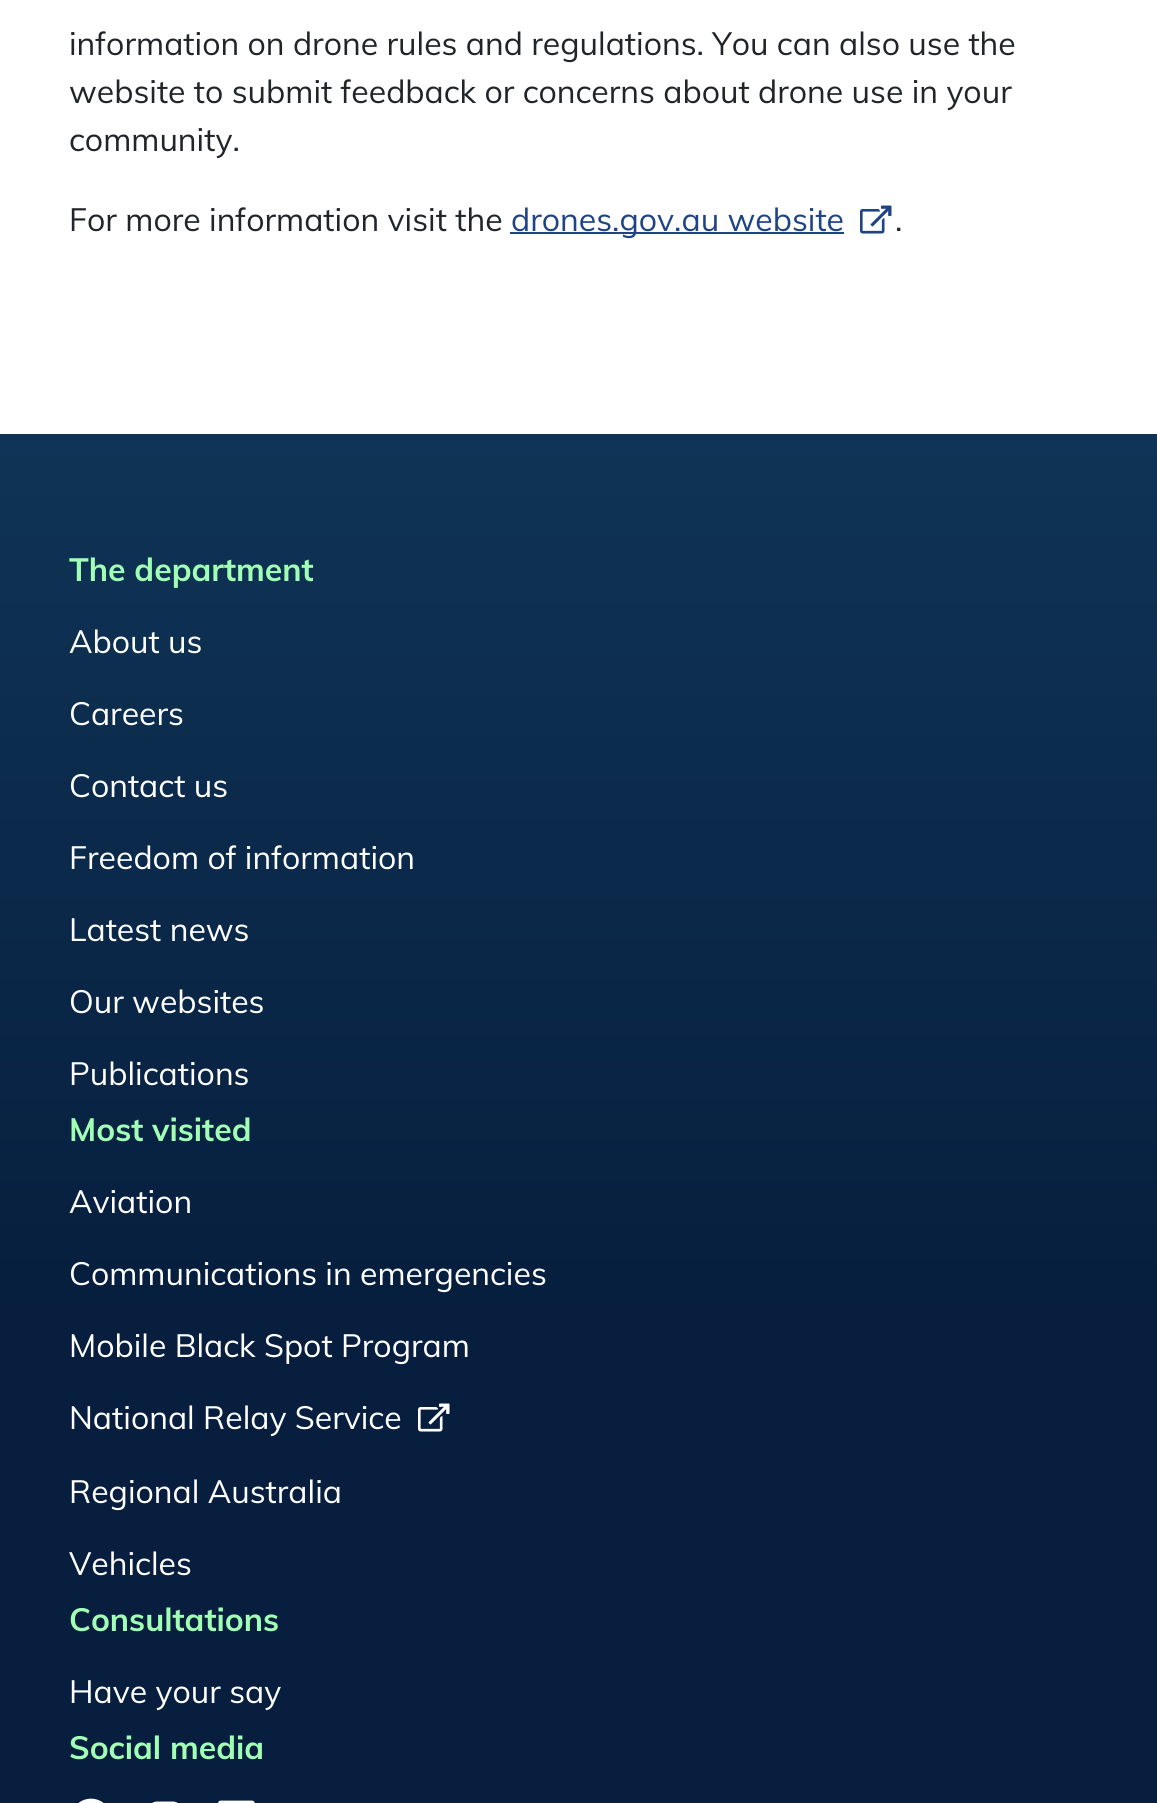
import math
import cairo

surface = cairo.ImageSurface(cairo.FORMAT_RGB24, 1157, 1803)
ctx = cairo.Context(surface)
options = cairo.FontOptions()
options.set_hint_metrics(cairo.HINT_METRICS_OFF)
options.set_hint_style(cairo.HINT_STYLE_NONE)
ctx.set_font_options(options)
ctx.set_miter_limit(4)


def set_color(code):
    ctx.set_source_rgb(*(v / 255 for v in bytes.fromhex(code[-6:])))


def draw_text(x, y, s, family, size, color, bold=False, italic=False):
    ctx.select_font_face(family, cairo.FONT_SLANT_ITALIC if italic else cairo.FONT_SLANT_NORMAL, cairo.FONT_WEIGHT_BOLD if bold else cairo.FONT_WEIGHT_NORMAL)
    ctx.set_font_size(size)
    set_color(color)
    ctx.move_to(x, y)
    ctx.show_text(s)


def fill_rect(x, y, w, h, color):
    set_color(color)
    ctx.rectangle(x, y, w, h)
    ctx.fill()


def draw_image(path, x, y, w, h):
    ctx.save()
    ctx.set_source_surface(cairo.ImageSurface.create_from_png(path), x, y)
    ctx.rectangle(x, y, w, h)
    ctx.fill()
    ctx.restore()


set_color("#ffffff")
ctx.paint()
draw_text(69, 55, "information on drone rules and regulations. You can also use the", "Muli", 32, "#212529")
draw_text(69, 103, "website to submit feedback or concerns about drone use in your", "Muli", 32, "#212529")
draw_text(69, 151, "community.", "Muli", 32, "#212529")
draw_text(69, 231, "For more information visit the", "Muli", 32, "#212529")
fill_rect(510, 232, 334, 2, "#1e4486")
draw_text(511, 231, "drones.gov.au website", "Muli", 32, "#1e4486")
draw_image("assets/img1.png", 860, 205, 32, 29)
draw_text(895, 231, ".", "Muli", 32, "#212529")
gradient = cairo.LinearGradient(579, 434, 579, 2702)
gradient.add_color_stop_rgba(0, 0.059, 0.204, 0.337, 1)
gradient.add_color_stop_rgba(0.39, 0.027, 0.118, 0.243, 1)
ctx.set_source(gradient)
ctx.rectangle(0, 434, 1157, 1369)
ctx.fill()
draw_text(69, 581, "The department", "Muli", 32, "#a1feb5", bold=True)
draw_text(69, 653, "About us", "Muli", 32, "#ffffff")
draw_text(69, 725, "Careers", "Muli", 32, "#ffffff")
draw_text(69, 797, "Contact us", "Muli", 32, "#ffffff")
draw_text(69, 869, "Freedom of information", "Muli", 32, "#ffffff")
draw_text(69, 941, "Latest news", "Muli", 32, "#ffffff")
draw_text(69, 1013, "Our websites", "Muli", 32, "#ffffff")
draw_text(69, 1085, "Publications", "Muli", 32, "#ffffff")
draw_text(69, 1141, "Most visited", "Muli", 32, "#a1feb5", bold=True)
draw_text(69, 1213, "Aviation", "Muli", 32, "#ffffff")
draw_text(69, 1285, "Communications in emergencies", "Muli", 32, "#ffffff")
draw_text(69, 1357, "Mobile Black Spot Program", "Muli", 32, "#ffffff")
draw_text(69, 1429, "National Relay Service", "Muli", 32, "#ffffff")
draw_image("assets/img2.png", 418, 1403, 32, 29)
draw_text(69, 1503, "Regional Australia", "Muli", 32, "#ffffff")
draw_text(69, 1575, "Vehicles", "Muli", 32, "#ffffff")
draw_text(69, 1631, "Consultations", "Muli", 32, "#a1feb5", bold=True)
draw_text(69, 1703, "Have your say", "Muli", 32, "#ffffff")
draw_text(69, 1759, "Social media", "Muli", 32, "#a1feb5", bold=True)
draw_image("assets/img3.png", 78, 1798, 26, 5)
draw_image("assets/img4.png", 152, 1801, 26, 2)
draw_image("assets/img5.png", 218, 1800, 37, 3)
surface.write_to_png("output.png")
